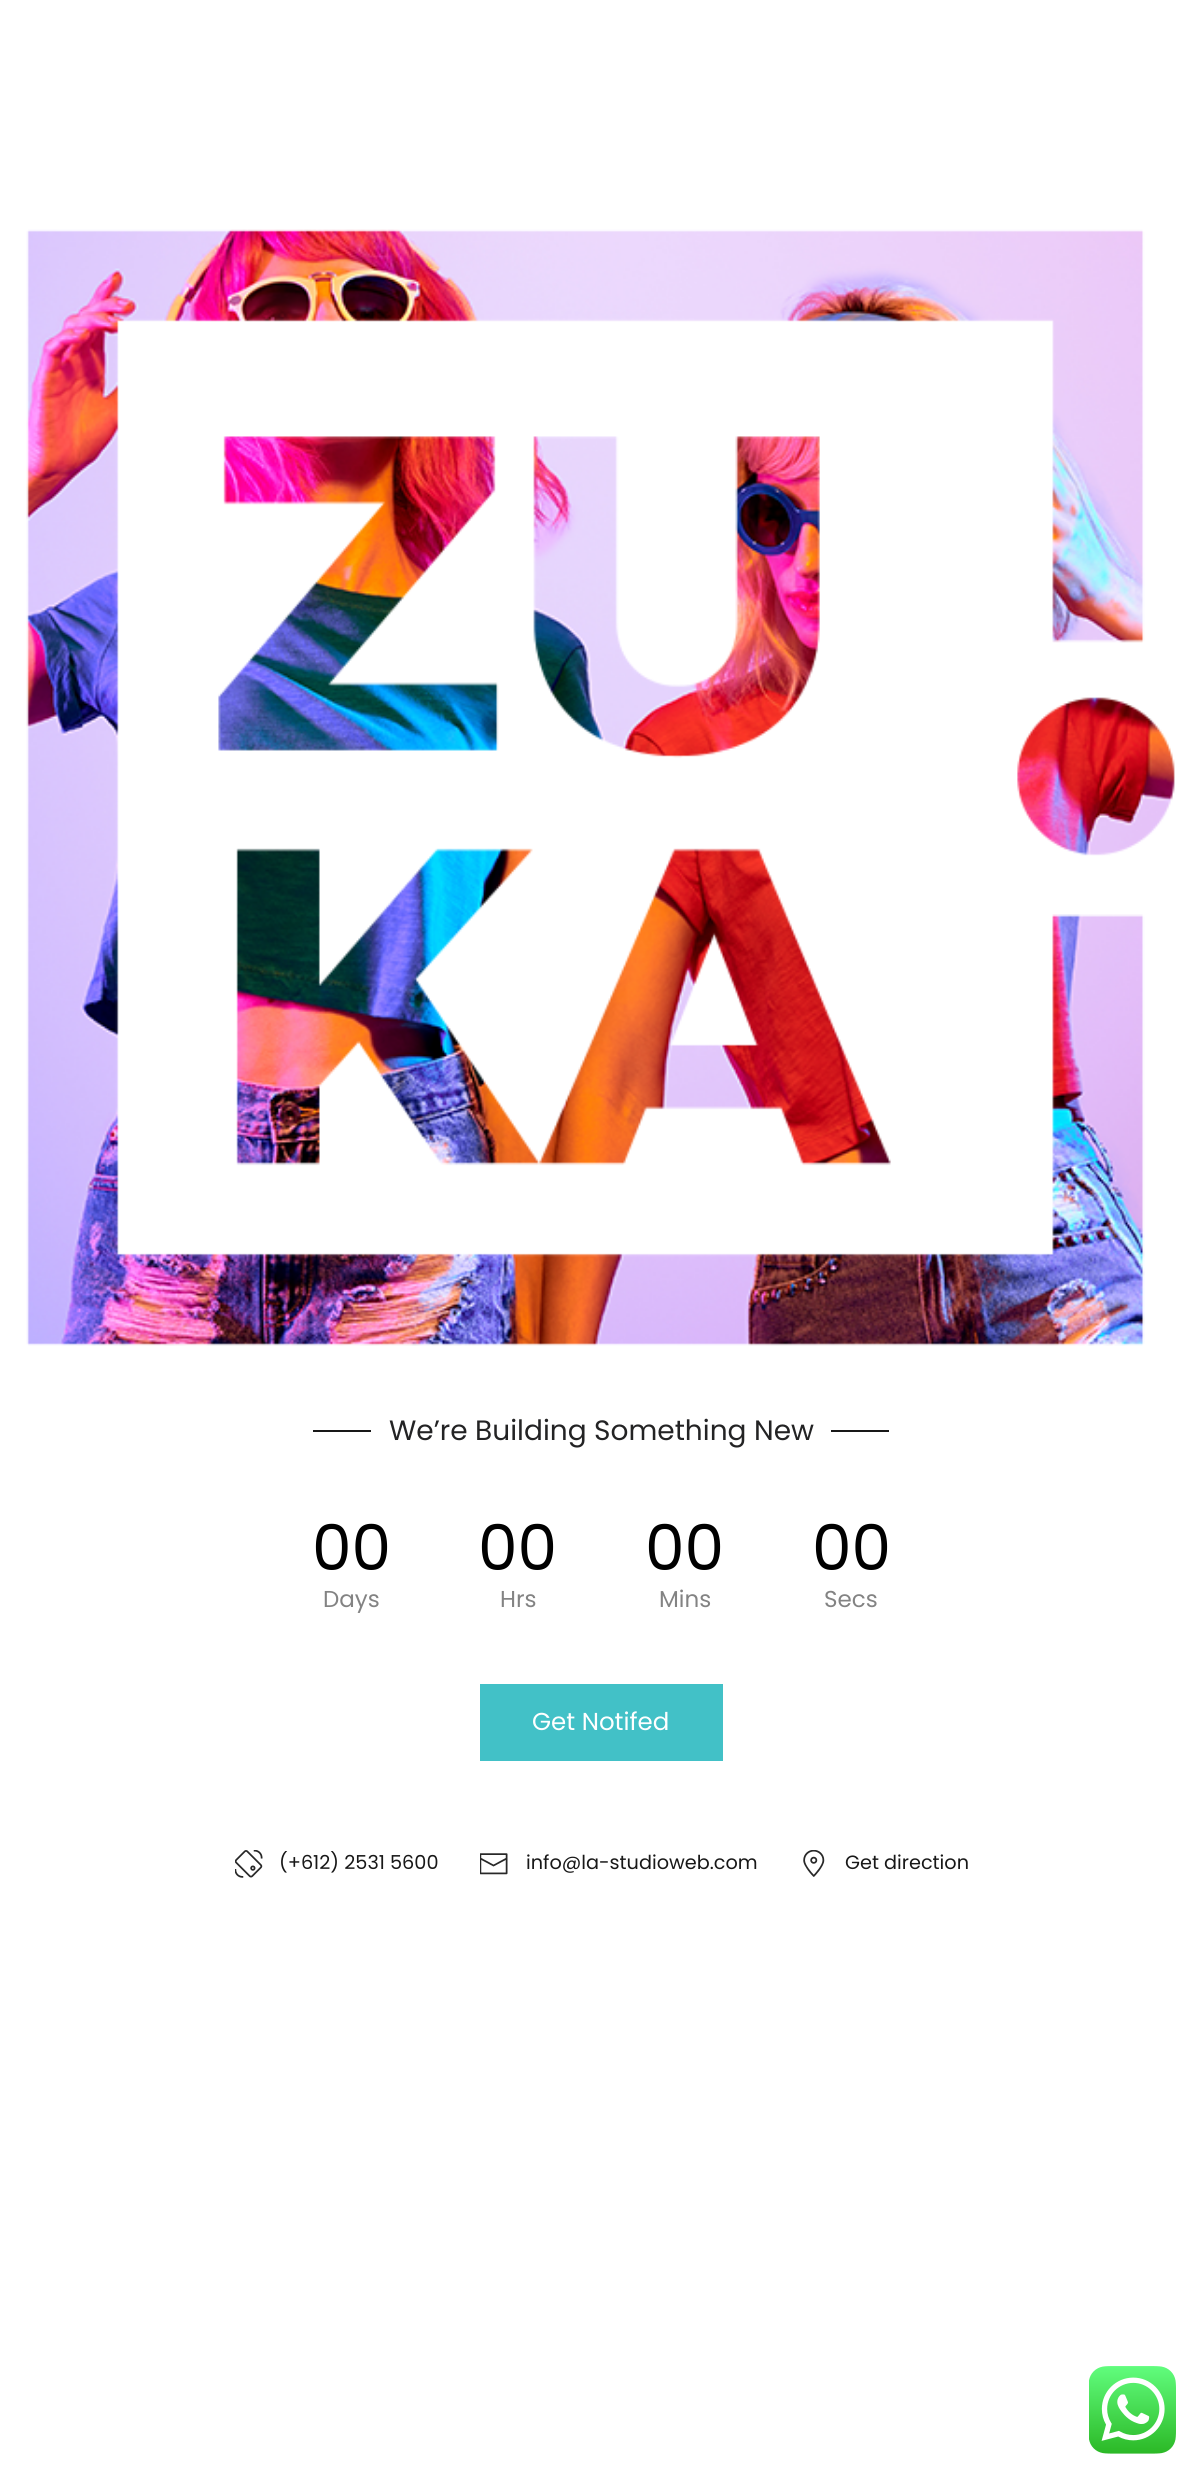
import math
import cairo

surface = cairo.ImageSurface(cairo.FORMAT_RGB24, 1202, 2479)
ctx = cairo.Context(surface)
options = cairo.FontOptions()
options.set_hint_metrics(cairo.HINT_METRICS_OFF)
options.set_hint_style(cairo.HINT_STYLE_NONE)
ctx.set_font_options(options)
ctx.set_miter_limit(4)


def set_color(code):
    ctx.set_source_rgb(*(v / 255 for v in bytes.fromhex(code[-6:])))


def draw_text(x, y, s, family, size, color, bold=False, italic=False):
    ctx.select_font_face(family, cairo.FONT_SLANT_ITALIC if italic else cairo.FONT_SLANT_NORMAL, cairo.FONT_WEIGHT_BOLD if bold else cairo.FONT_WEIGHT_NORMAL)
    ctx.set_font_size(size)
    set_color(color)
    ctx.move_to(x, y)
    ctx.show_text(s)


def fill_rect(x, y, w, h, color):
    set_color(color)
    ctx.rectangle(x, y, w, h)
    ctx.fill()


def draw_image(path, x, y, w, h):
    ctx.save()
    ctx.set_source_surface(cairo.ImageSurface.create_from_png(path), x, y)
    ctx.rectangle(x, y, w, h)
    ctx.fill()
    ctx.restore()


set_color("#ffffff")
ctx.paint()
draw_image("assets/img1.png", 26, 229, 1149, 1117)
fill_rect(313, 1430, 576, 2, "#181818")
fill_rect(371, 1430, 460, 2, "#ffffff")
draw_text(389, 1440, "We’re Building Something New", "Poppins", 28, "#232324")
draw_text(312, 1570, "00", "Poppins", 63, "#000000")
draw_text(323, 1607, "Days", "Poppins", 23, "#838383")
draw_text(478, 1570, "00", "Poppins", 63, "#000000")
draw_text(500, 1607, "Hrs", "Poppins", 23, "#838383")
draw_text(645, 1570, "00", "Poppins", 63, "#000000")
draw_text(659, 1607, "Mins", "Poppins", 23, "#838383")
draw_text(812, 1570, "00", "Poppins", 63, "#000000")
draw_text(824, 1607, "Secs", "Poppins", 23, "#838383")
fill_rect(480, 1684, 243, 77, "#42c1c7")
draw_text(532, 1730, "Get Notifed", "Poppins", 24.5, "#ffffff")
draw_image("assets/img2.png", 235, 1850, 28, 28)
draw_text(279, 1869, "(+612) 2531 5600", "Poppins", 19.25, "#181818")
draw_image("assets/img3.png", 480, 1853, 28, 22)
draw_text(526, 1869, "info@la-studioweb.com", "Poppins", 19.25, "#181818")
draw_image("assets/img4.png", 803, 1850, 22, 27)
draw_text(845, 1869, "Get direction", "Poppins", 19.25, "#181818")
draw_image("assets/img5.png", 1089, 2366, 87, 88)
surface.write_to_png("output.png")
